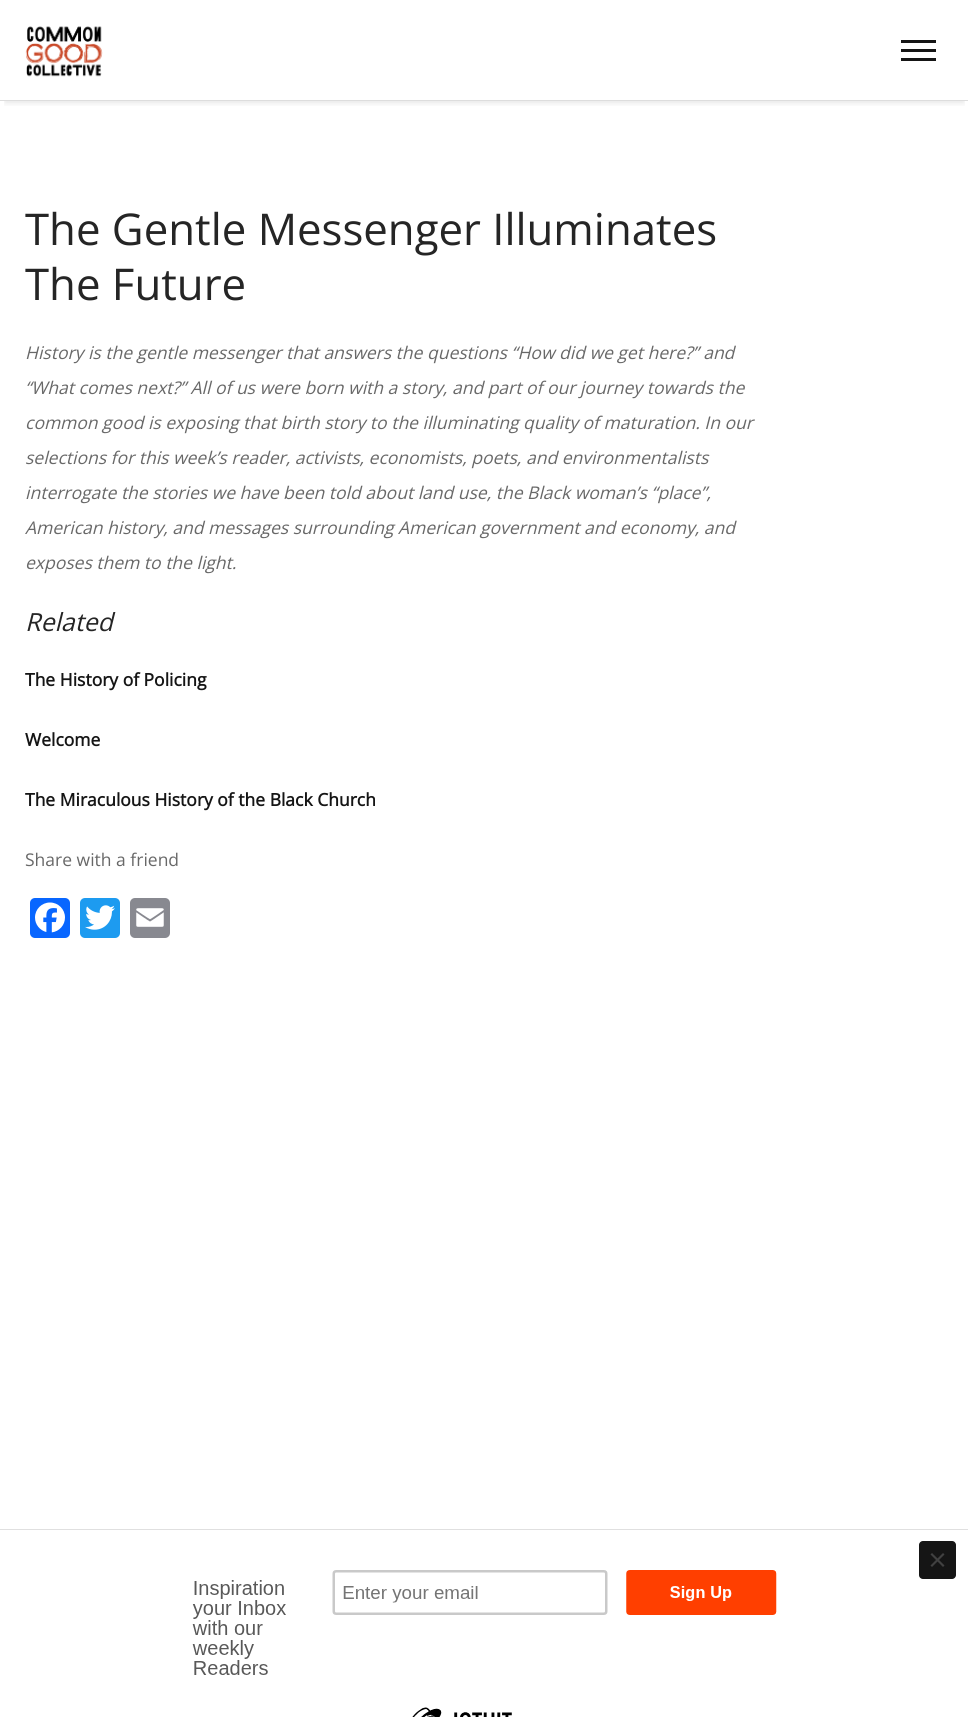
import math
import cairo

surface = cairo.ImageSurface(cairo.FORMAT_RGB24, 968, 1717)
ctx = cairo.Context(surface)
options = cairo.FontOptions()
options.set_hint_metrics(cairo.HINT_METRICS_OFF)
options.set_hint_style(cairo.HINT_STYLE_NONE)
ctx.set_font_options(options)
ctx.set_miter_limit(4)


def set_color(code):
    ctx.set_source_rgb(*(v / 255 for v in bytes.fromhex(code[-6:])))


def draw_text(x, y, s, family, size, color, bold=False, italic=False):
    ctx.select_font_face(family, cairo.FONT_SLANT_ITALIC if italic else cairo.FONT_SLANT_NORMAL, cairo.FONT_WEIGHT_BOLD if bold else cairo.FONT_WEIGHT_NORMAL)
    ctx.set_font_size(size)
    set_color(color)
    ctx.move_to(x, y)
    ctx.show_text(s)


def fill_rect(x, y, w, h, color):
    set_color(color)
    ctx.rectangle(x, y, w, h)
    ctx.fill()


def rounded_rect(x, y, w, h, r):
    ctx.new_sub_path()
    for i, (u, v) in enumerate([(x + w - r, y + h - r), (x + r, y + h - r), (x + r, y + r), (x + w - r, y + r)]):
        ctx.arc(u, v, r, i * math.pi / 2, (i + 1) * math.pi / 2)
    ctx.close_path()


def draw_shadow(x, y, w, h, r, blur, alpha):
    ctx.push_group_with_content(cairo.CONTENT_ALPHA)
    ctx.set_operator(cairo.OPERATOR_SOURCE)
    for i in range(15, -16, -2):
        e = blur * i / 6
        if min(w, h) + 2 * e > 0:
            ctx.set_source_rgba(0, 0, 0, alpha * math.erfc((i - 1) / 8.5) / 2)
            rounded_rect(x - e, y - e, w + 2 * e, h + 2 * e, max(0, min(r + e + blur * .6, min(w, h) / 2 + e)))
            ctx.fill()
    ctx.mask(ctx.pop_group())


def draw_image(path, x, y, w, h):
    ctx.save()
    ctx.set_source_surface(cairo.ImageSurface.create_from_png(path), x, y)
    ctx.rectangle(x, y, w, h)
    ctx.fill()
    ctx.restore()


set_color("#ffffff")
ctx.paint()
ctx.save()
ctx.rectangle(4, 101, 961, 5)
ctx.clip()
set_color("#000000")
draw_shadow(5, 11, 959, 92, 0, 3, 0.1)
ctx.restore()
fill_rect(0, 100, 968, 1, "#dddddd")
draw_image("assets/img1.png", 25, 26, 78, 51)
fill_rect(901, 49, 35, 3, "#151515")
fill_rect(901, 40, 35, 3, "#151515")
fill_rect(901, 58, 35, 3, "#151515")
draw_text(25, 245, "The Gentle Messenger Illuminates", "Open Sans", 43.75, "#252525")
draw_text(25, 300, "The Future", "Open Sans", 43.75, "#252525")
draw_text(25, 359, "History is the gentle messenger that answers the questions “How did we get here?” and", "Open Sans", 17.5, "#686868", italic=True)
draw_text(25, 394, "“What comes next?” All of us were born with a story, and part of our journey towards the", "Open Sans", 17.5, "#686868", italic=True)
draw_text(25, 429, "common good is exposing that birth story to the illuminating quality of maturation. In our", "Open Sans", 17.5, "#686868", italic=True)
draw_text(25, 464, "selections for this week’s reader, activists, economists, poets, and environmentalists", "Open Sans", 17.5, "#686868", italic=True)
draw_text(25, 499, "interrogate the stories we have been told about land use, the Black woman’s “place”,", "Open Sans", 17.5, "#686868", italic=True)
draw_text(25, 534, "American history, and messages surrounding American government and economy, and", "Open Sans", 17.5, "#686868", italic=True)
draw_text(25, 569, "exposes them to the light.", "Open Sans", 17.5, "#686868", italic=True)
draw_text(25, 631, "Related", "Open Sans", 25, "#252525", italic=True)
draw_text(25, 686, "The History of Policing", "Open Sans", 17.5, "#151515", bold=True)
draw_text(25, 746, "Welcome", "Open Sans", 17.5, "#151515", bold=True)
draw_text(25, 806, "The Miraculous History of the Black Church", "Open Sans", 17.5, "#151515", bold=True)
draw_text(25, 866, "Share with a friend", "Open Sans", 17.5, "#686868")
set_color("#0866ff")
rounded_rect(30, 898, 40, 40, 5)
ctx.fill()
draw_image("assets/img2.png", 35, 902, 30, 31)
set_color("#1d9bf0")
rounded_rect(80, 898, 40, 40, 5)
ctx.fill()
draw_image("assets/img3.png", 85, 905, 30, 25)
set_color("#888990")
rounded_rect(130, 898, 40, 40, 5)
ctx.fill()
draw_image("assets/img4.png", 136, 908, 28, 19)
fill_rect(0, 1529, 968, 1, "#e0e0e0")
draw_image("assets/img5.png", 192, 1570, 585, 147)
set_color("#151515")
rounded_rect(919, 1541, 37, 38, 4)
ctx.fill()
set_color("#414141")
ctx.new_path()
ctx.move_to(943, 1553)
ctx.line_to(944.5, 1554.5)
ctx.line_to(932, 1567)
ctx.line_to(930.5, 1565.5)
ctx.close_path()
ctx.fill()
ctx.new_path()
ctx.move_to(930.5, 1554.5)
ctx.line_to(932, 1553)
ctx.line_to(944.5, 1565.5)
ctx.line_to(943, 1567)
ctx.close_path()
ctx.fill()
surface.write_to_png("output.png")
